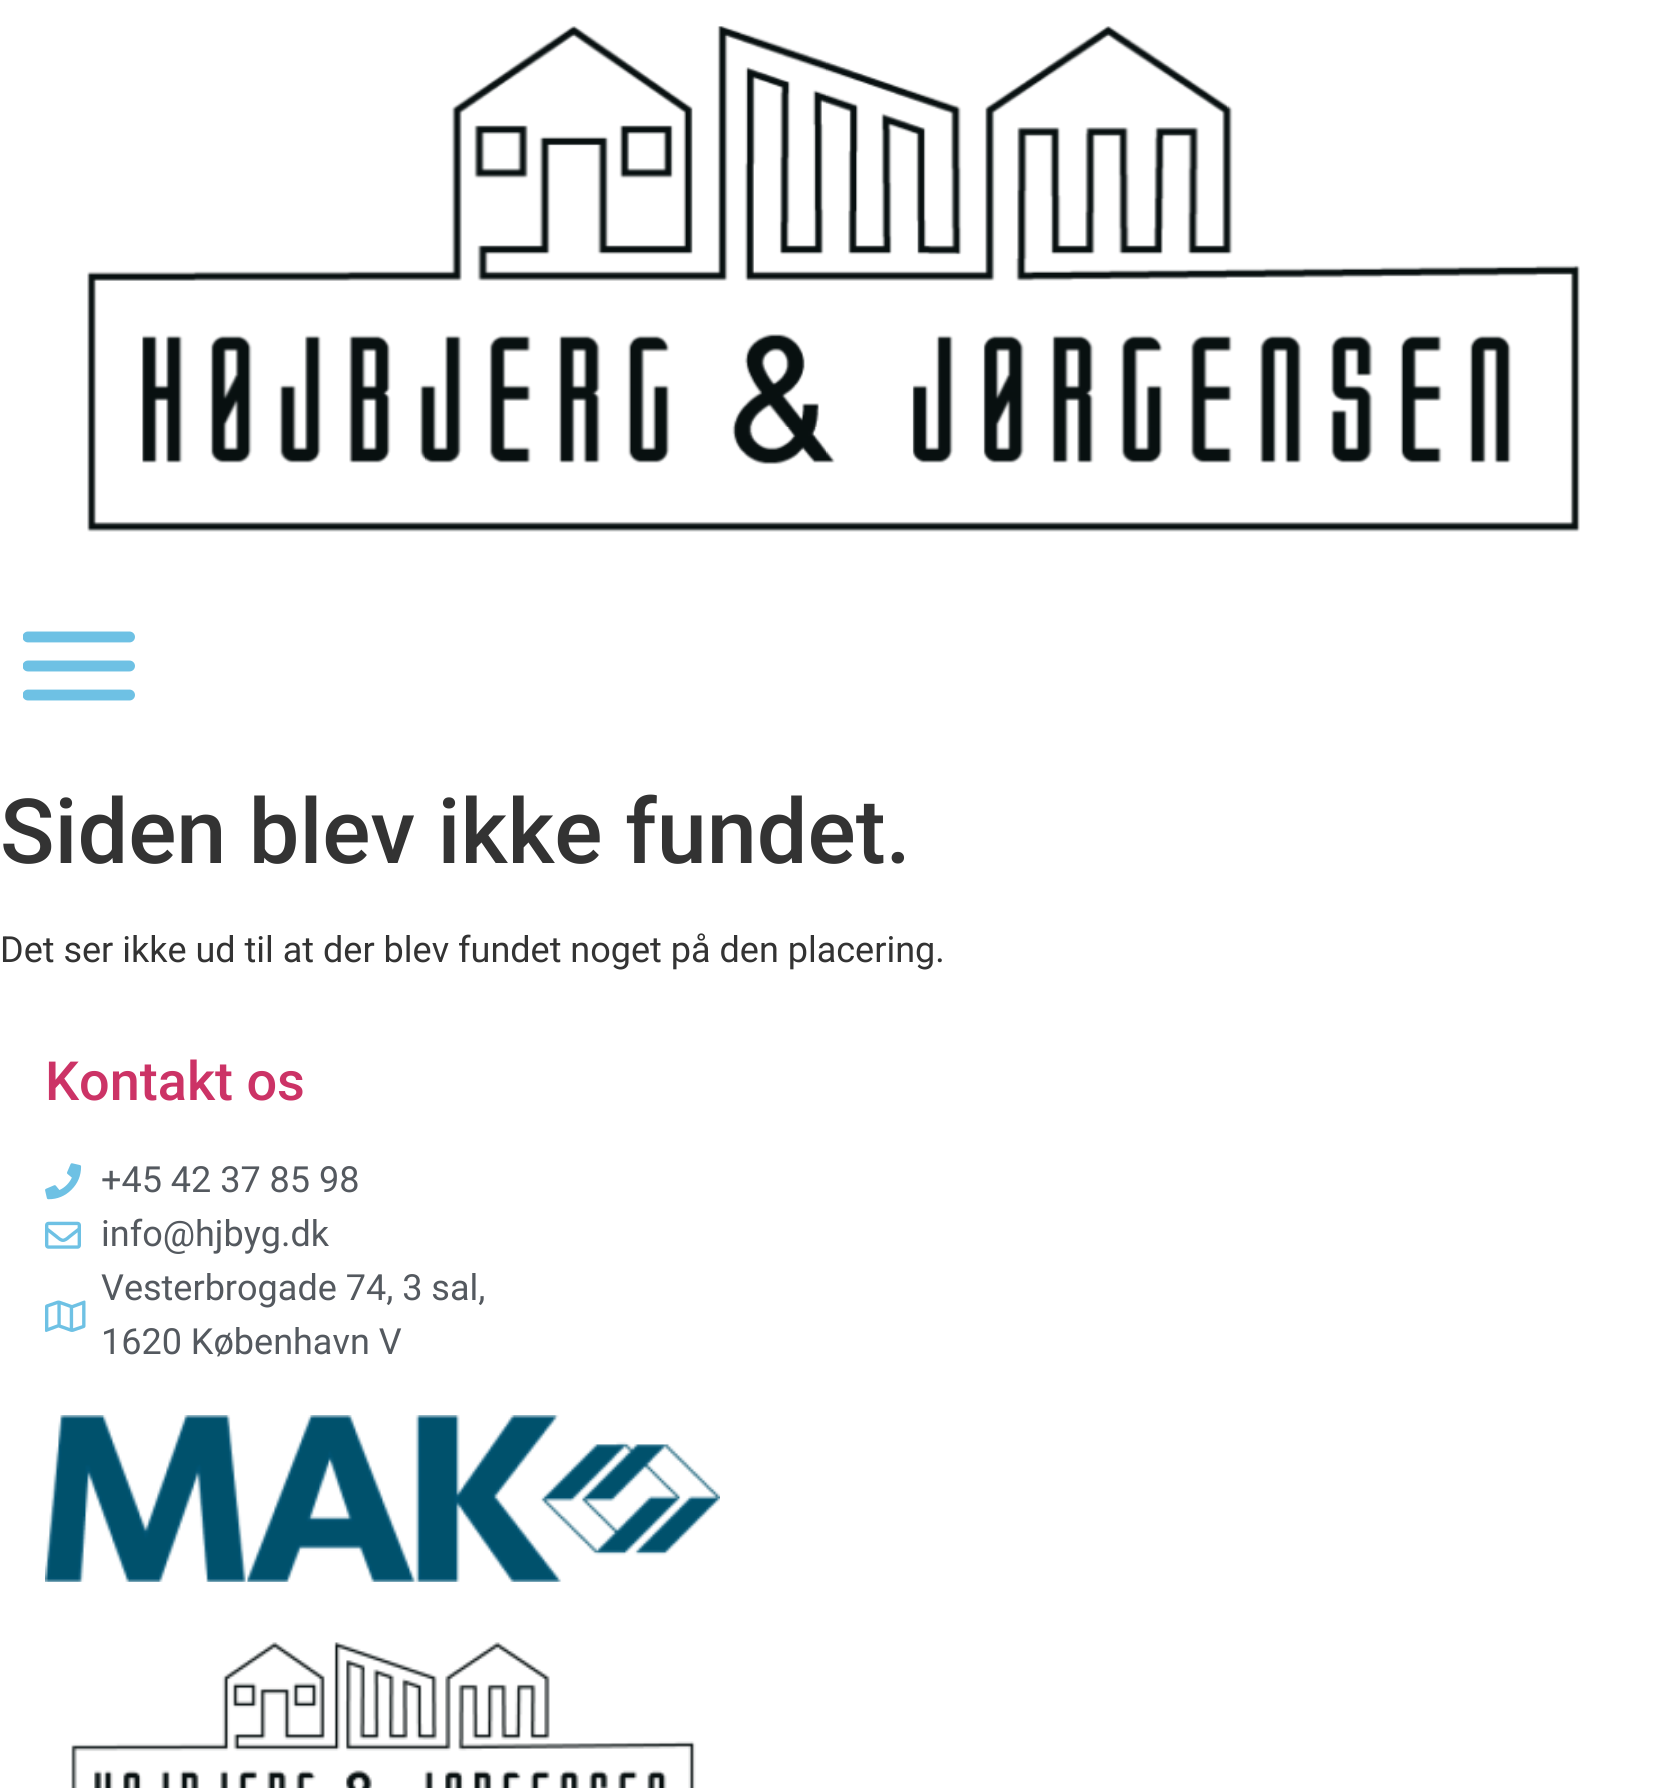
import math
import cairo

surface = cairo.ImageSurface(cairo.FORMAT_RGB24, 1664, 1788)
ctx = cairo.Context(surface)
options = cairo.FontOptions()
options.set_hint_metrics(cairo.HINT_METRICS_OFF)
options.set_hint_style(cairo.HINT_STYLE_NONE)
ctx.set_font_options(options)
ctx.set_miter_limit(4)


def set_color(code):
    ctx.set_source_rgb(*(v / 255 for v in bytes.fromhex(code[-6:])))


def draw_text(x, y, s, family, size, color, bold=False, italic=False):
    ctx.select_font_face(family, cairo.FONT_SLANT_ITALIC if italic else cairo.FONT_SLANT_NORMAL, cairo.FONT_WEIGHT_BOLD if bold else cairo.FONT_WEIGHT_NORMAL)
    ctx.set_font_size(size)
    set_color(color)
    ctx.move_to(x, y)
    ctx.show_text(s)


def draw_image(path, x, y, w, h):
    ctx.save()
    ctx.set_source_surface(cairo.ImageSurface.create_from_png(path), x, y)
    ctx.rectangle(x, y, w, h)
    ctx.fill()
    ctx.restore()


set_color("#ffffff")
ctx.paint()
draw_image("assets/img1.png", 87, 26, 1493, 506)
draw_image("assets/img2.png", 23, 631, 112, 70)
draw_text(0, 863, "Siden blev ikke fundet.", "Roboto Medium", 90, "#333333")
draw_text(0, 962, "Det ser ikke ud til at der blev fundet noget på den placering.", "Roboto", 36, "#333333")
draw_text(45, 1100, "Kontakt os", "Roboto Medium", 54, "#cc3366")
draw_image("assets/img3.png", 45, 1163, 37, 37)
draw_text(101, 1192, "+45 42 37 85 98", "Roboto", 36, "#54595f")
draw_image("assets/img4.png", 45, 1221, 36, 28)
draw_text(101, 1246, "info@hjbyg.dk", "Roboto", 36, "#54595f")
draw_image("assets/img5.png", 45, 1300, 41, 32)
draw_text(101, 1300, "Vesterbrogade 74, 3 sal,", "Roboto", 36, "#54595f")
draw_text(101, 1354, "1620 København V", "Roboto", 36, "#54595f")
draw_image("assets/img6.png", 45, 1415, 675, 167)
draw_image("assets/img7.png", 71, 1642, 625, 146)
surface.write_to_png("output.png")
